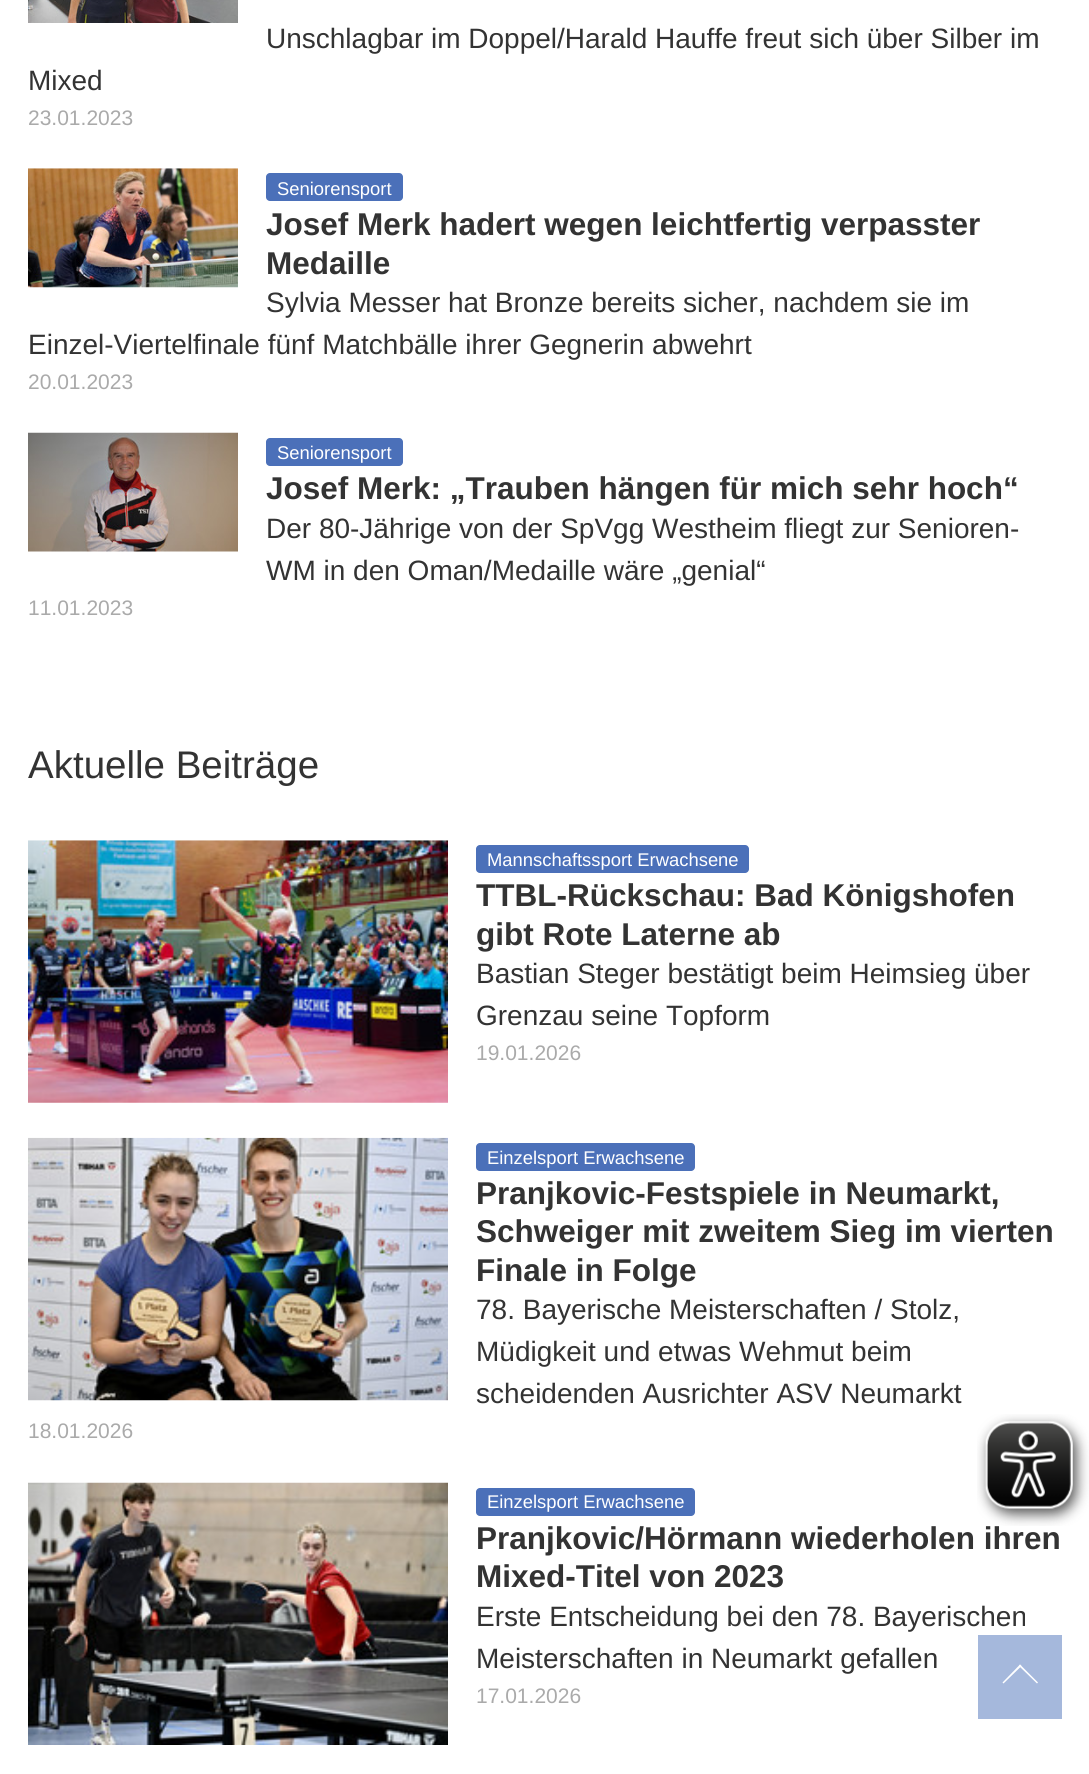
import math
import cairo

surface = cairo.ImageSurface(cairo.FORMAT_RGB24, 1089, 1774)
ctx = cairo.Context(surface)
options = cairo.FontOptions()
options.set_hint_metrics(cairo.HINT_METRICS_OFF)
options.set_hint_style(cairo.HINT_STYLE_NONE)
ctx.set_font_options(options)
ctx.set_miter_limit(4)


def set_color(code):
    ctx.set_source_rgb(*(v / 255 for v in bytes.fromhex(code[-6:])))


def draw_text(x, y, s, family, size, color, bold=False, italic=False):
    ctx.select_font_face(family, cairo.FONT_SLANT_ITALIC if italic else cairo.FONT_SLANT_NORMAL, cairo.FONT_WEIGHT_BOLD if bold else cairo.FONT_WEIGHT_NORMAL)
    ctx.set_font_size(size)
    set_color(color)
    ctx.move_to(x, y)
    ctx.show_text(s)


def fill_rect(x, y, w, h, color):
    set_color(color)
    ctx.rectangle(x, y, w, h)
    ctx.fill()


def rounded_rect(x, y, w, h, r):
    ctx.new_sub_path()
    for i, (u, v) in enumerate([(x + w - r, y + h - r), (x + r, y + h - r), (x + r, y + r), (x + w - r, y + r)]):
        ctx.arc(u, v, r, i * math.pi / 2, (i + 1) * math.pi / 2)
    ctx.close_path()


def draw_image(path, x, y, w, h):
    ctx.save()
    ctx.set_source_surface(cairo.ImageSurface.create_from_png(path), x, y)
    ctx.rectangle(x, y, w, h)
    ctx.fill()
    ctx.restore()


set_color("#ffffff")
ctx.paint()
draw_image("assets/img1.png", 28, 0, 210, 23)
draw_text(266, 48, "Unschlagbar im Doppel/Harald Hauffe freut sich über Silber im", "Liberation Sans", 28, "#333333")
draw_text(28, 90, "Mixed", "Liberation Sans", 28, "#333333")
draw_text(28, 125, "23.01.2023", "Liberation Sans", 21, "#aaaaaa")
draw_image("assets/img2.png", 28, 168, 210, 120)
set_color("#4b70b9")
rounded_rect(266, 173, 137, 28, 4)
ctx.fill()
draw_text(277, 195, "Seniorensport", "Liberation Sans", 18.4, "#ffffff")
draw_text(266, 235, "Josef Merk hadert wegen leichtfertig verpasster", "Liberation Sans", 31.5, "#333333", bold=True)
draw_text(266, 274, "Medaille", "Liberation Sans", 31.5, "#333333", bold=True)
draw_text(266, 312, "Sylvia Messer hat Bronze bereits sicher, nachdem sie im", "Liberation Sans", 28, "#333333")
draw_text(28, 354, "Einzel-Viertelfinale fünf Matchbälle ihrer Gegnerin abwehrt", "Liberation Sans", 28, "#333333")
draw_text(28, 389, "20.01.2023", "Liberation Sans", 21, "#aaaaaa")
draw_image("assets/img3.png", 28, 432, 210, 120)
set_color("#4b70b9")
rounded_rect(266, 438, 137, 28, 4)
ctx.fill()
draw_text(277, 459, "Seniorensport", "Liberation Sans", 18.4, "#ffffff")
draw_text(266, 499, "Josef Merk: „Trauben hängen für mich sehr hoch“", "Liberation Sans", 31.5, "#333333", bold=True)
draw_text(266, 538, "Der 80-Jährige von der SpVgg Westheim fliegt zur Senioren-", "Liberation Sans", 28, "#333333")
draw_text(266, 580, "WM in den Oman/Medaille wäre „genial“", "Liberation Sans", 28, "#333333")
draw_text(28, 615, "11.01.2023", "Liberation Sans", 21, "#aaaaaa")
draw_text(28, 778, "Aktuelle Beiträge", "Liberation Sans", 38.5, "#333333")
draw_image("assets/img4.png", 28, 840, 420, 263)
set_color("#4b70b9")
rounded_rect(476, 845, 273, 28, 4)
ctx.fill()
draw_text(487, 866, "Mannschaftssport Erwachsene", "Liberation Sans", 18.4, "#ffffff")
draw_text(476, 906, "TTBL-Rückschau: Bad Königshofen", "Liberation Sans", 31.5, "#333333", bold=True)
draw_text(476, 945, "gibt Rote Laterne ab", "Liberation Sans", 31.5, "#333333", bold=True)
draw_text(476, 983, "Bastian Steger bestätigt beim Heimsieg über", "Liberation Sans", 28, "#333333")
draw_text(476, 1025, "Grenzau seine Topform", "Liberation Sans", 28, "#333333")
draw_text(476, 1060, "19.01.2026", "Liberation Sans", 21, "#aaaaaa")
draw_image("assets/img5.png", 28, 1137, 420, 264)
set_color("#4b70b9")
rounded_rect(476, 1143, 219, 28, 4)
ctx.fill()
draw_text(487, 1164, "Einzelsport Erwachsene", "Liberation Sans", 18.4, "#ffffff")
draw_text(476, 1204, "Pranjkovic-Festspiele in Neumarkt,", "Liberation Sans", 31.5, "#333333", bold=True)
draw_text(476, 1242, "Schweiger mit zweitem Sieg im vierten", "Liberation Sans", 31.5, "#333333", bold=True)
draw_text(476, 1281, "Finale in Folge", "Liberation Sans", 31.5, "#333333", bold=True)
draw_text(476, 1319, "78. Bayerische Meisterschaften / Stolz,", "Liberation Sans", 28, "#333333")
draw_text(476, 1361, "Müdigkeit und etwas Wehmut beim", "Liberation Sans", 28, "#333333")
draw_text(476, 1403, "scheidenden Ausrichter ASV Neumarkt", "Liberation Sans", 28, "#333333")
draw_text(28, 1438, "18.01.2026", "Liberation Sans", 21, "#aaaaaa")
draw_image("assets/img6.png", 28, 1482, 420, 263)
set_color("#4b70b9")
rounded_rect(476, 1488, 219, 28, 4)
ctx.fill()
draw_text(487, 1508, "Einzelsport Erwachsene", "Liberation Sans", 18.4, "#ffffff")
draw_text(476, 1549, "Pranjkovic/Hörmann wiederholen ihren", "Liberation Sans", 31.5, "#333333", bold=True)
draw_text(476, 1587, "Mixed-Titel von 2023", "Liberation Sans", 31.5, "#333333", bold=True)
draw_text(476, 1626, "Erste Entscheidung bei den 78. Bayerischen", "Liberation Sans", 28, "#333333")
draw_text(476, 1668, "Meisterschaften in Neumarkt gefallen", "Liberation Sans", 28, "#333333")
draw_text(476, 1703, "17.01.2026", "Liberation Sans", 21, "#aaaaaa")
fill_rect(978, 1635, 84, 84, "#a5b8dc")
set_color("#ffffff")
ctx.new_path()
ctx.move_to(1020, 1664.5)
ctx.line_to(1038, 1682.5)
ctx.line_to(1037, 1683.5)
ctx.line_to(1019, 1666)
ctx.close_path()
ctx.fill()
ctx.new_path()
ctx.move_to(1020, 1664.5)
ctx.line_to(1021.5, 1666)
ctx.line_to(1003.5, 1683.5)
ctx.line_to(1002.5, 1682.5)
ctx.close_path()
ctx.fill()
draw_image("assets/img7.png", 977, 1414, 112, 112)
surface.write_to_png("output.png")
